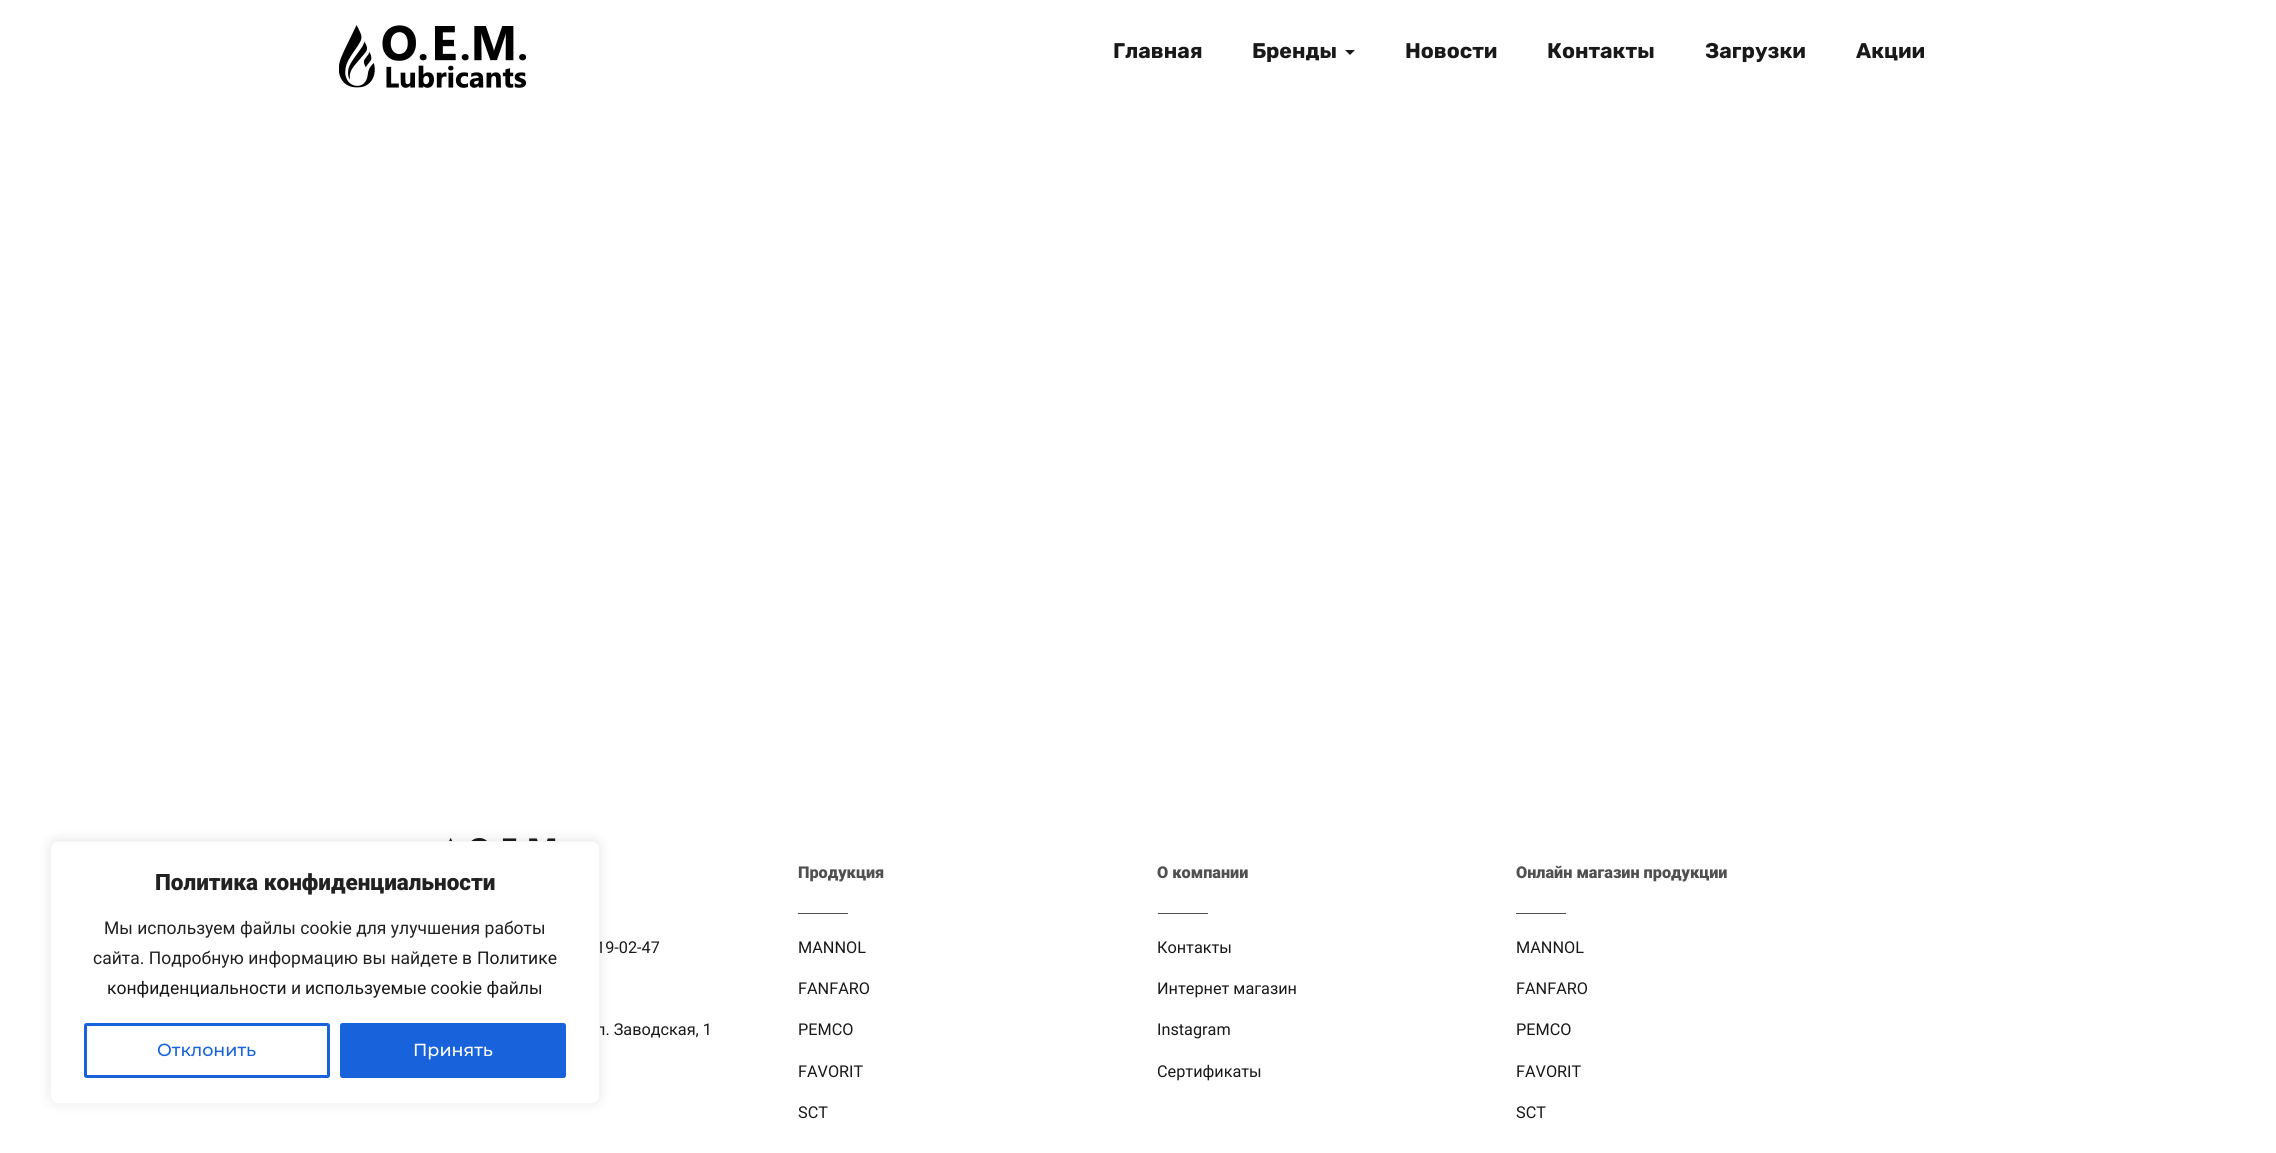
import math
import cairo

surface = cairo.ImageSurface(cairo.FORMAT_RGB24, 2276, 1153)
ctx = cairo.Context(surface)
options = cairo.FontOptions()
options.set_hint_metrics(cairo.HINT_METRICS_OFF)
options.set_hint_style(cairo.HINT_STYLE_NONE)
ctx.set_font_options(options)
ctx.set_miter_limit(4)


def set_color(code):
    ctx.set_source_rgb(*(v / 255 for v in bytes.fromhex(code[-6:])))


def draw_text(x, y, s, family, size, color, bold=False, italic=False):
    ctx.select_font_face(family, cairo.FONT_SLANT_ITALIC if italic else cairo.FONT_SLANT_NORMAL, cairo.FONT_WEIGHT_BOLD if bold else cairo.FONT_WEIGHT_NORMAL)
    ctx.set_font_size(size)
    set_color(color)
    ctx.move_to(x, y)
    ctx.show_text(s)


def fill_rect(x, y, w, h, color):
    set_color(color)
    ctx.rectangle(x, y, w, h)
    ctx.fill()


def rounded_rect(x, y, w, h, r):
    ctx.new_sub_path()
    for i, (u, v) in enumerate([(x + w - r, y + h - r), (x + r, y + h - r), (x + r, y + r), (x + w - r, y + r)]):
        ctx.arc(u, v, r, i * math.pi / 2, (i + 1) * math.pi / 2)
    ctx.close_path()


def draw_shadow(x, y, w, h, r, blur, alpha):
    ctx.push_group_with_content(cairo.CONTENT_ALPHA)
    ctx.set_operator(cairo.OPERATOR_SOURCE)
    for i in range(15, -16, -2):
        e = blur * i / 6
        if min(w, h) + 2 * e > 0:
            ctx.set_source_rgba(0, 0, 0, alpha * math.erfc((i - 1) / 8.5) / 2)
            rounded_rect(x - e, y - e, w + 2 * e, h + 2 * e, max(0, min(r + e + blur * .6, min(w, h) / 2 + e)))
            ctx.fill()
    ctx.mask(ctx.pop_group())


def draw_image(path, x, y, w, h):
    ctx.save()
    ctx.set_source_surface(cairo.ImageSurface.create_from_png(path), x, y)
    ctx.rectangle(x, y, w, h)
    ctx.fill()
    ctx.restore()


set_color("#ffffff")
ctx.paint()
draw_image("assets/img1.png", 339, 25, 187, 63)
draw_text(1113, 58, "Главная", "Rubik", 21.25, "#191919", bold=True)
draw_text(1252, 58, "Бренды", "Rubik", 21.25, "#191919", bold=True)
ctx.new_path()
ctx.move_to(1345, 50)
ctx.line_to(1355, 50)
ctx.line_to(1350, 55)
ctx.close_path()
ctx.fill()
draw_text(1405, 58, "Новости", "Rubik", 21.25, "#191919", bold=True)
draw_text(1547, 58, "Контакты", "Rubik", 21.25, "#191919", bold=True)
draw_text(1705, 58, "Загрузки", "Rubik", 21.25, "#191919", bold=True)
draw_text(1856, 58, "Акции", "Rubik", 21.25, "#191919", bold=True)
draw_image("assets/img2.png", 449, 838, 107, 3)
set_color("#acabab")
draw_shadow(50, 840, 550, 263, 8, 6, 0.3)
draw_text(596, 953, "19-02-47", "Roboto", 16.25, "#191919")
draw_text(596, 1035, "л. Заводская, 1", "Roboto", 16.25, "#191919")
set_color("#ffffff")
rounded_rect(50.5, 841.5, 549, 262, 7.5)
ctx.fill_preserve()
set_color("#f4f4f4")
ctx.set_line_width(1)
ctx.stroke()
draw_text(155, 890, "Политика конфиденциальности", "Roboto Black", 22.5, "#212121")
draw_text(104, 934, "Мы используем файлы cookie для улучшения работы", "Roboto", 17.5, "#212121")
draw_text(93, 964, "сайта. Подробную информацию вы найдете в", "Roboto", 17.5, "#212121")
draw_text(477, 964, "Политике", "Roboto", 17.5, "#191919")
draw_text(107, 994, "конфиденциальности", "Roboto", 17.5, "#191919")
draw_text(291, 994, "и", "Roboto", 17.5, "#212121")
draw_text(305, 994, "используемые сооkie файлы", "Roboto", 17.5, "#191919")
rounded_rect(85.5, 1024.5, 243, 52, 1)
set_color("#1863dc")
ctx.set_line_width(3)
ctx.stroke()
draw_text(157, 1056, "Отклонить", "Montserrat Medium", 17.5, "#1863dc")
rounded_rect(341.5, 1024.5, 223, 52, 1)
ctx.fill_preserve()
ctx.stroke()
draw_text(413, 1056, "Принять", "Montserrat Medium", 17.5, "#ffffff")
draw_text(798, 878, "Продукция", "Roboto Black", 16.25, "#505050")
fill_rect(798, 913, 50, 1, "#505050")
draw_text(798, 953, "MANNOL", "Roboto", 16.25, "#191919")
draw_text(798, 994, "FANFARO", "Roboto", 16.25, "#191919")
draw_text(798, 1035, "PEMCO", "Roboto", 16.25, "#191919")
draw_text(798, 1077, "FAVORIT", "Roboto", 16.25, "#191919")
draw_text(798, 1118, "SCT", "Roboto", 16.25, "#191919")
draw_text(1157, 878, "О компании", "Roboto Black", 16.25, "#505050")
fill_rect(1158, 913, 50, 1, "#505050")
draw_text(1157, 953, "Контакты", "Roboto", 16.25, "#191919")
draw_text(1157, 994, "Интернет магазин", "Roboto", 16.25, "#191919")
draw_text(1157, 1035, "Instagram", "Roboto", 16.25, "#191919")
draw_text(1157, 1077, "Сертификаты", "Roboto", 16.25, "#191919")
draw_text(1516, 878, "Онлайн магазин продукции", "Roboto Black", 16.25, "#505050")
fill_rect(1516, 913, 50, 1, "#505050")
draw_text(1516, 953, "MANNOL", "Roboto", 16.25, "#191919")
draw_text(1516, 994, "FANFARO", "Roboto", 16.25, "#191919")
draw_text(1516, 1035, "PEMCO", "Roboto", 16.25, "#191919")
draw_text(1516, 1077, "FAVORIT", "Roboto", 16.25, "#191919")
draw_text(1516, 1118, "SCT", "Roboto", 16.25, "#191919")
surface.write_to_png("output.png")
